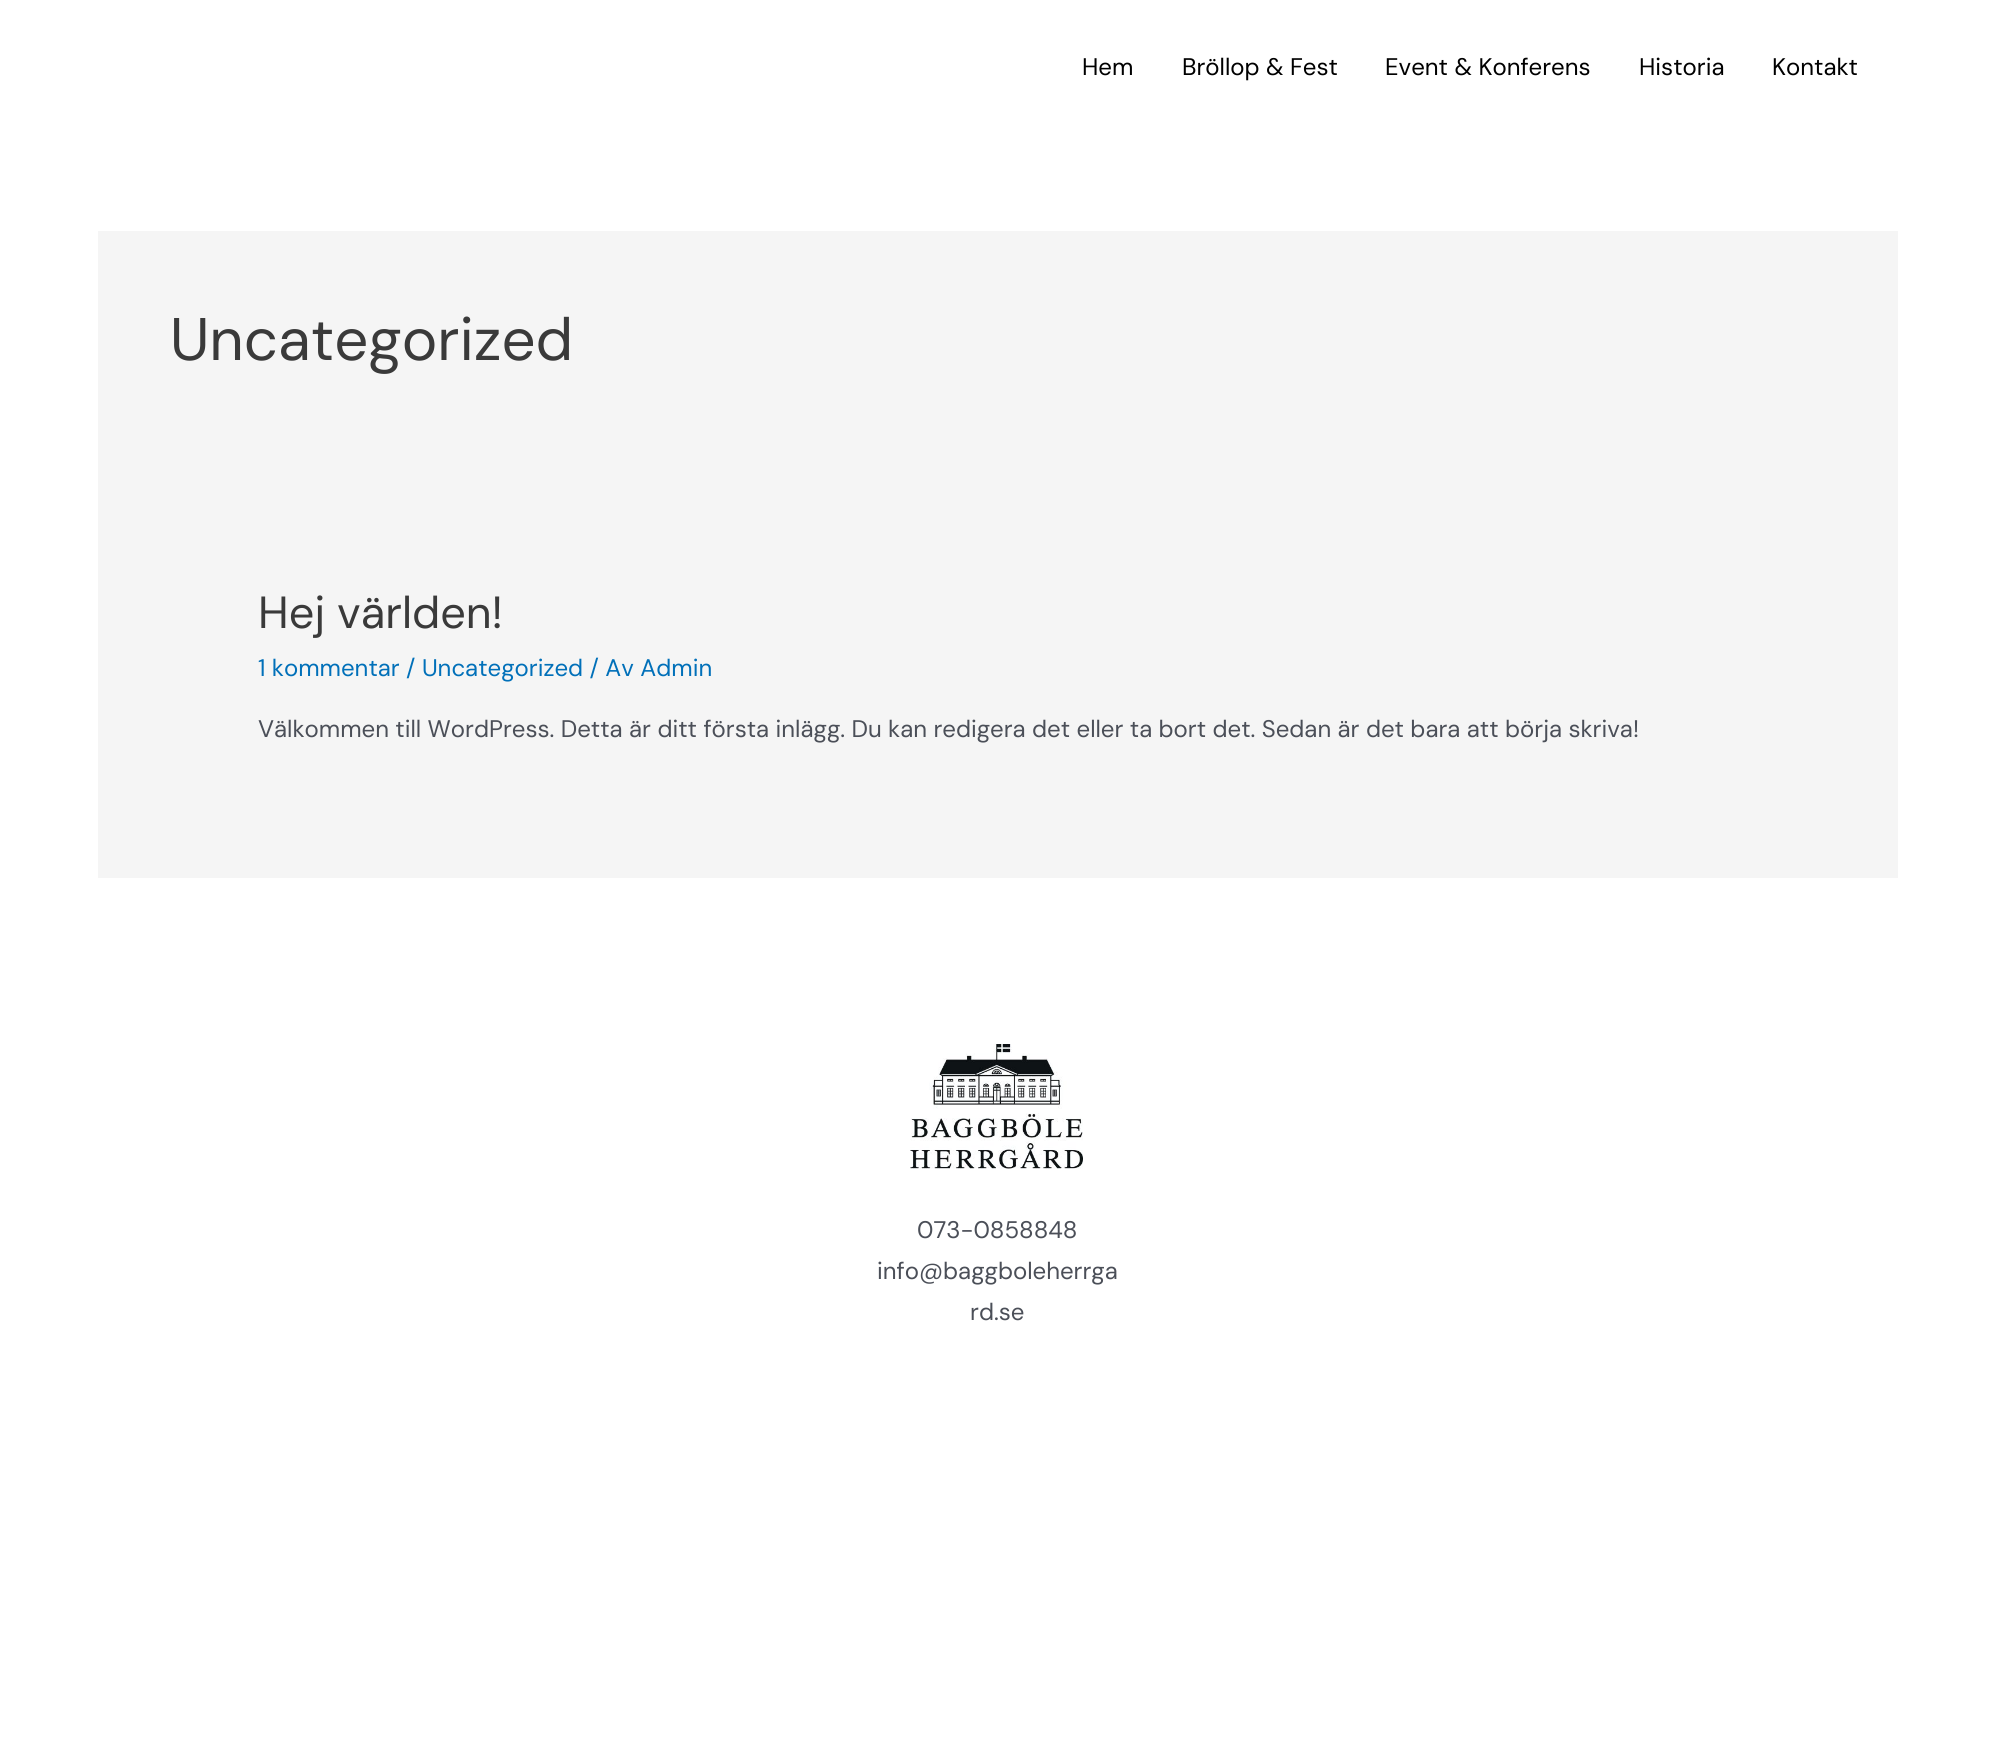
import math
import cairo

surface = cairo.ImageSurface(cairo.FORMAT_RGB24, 1995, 1743)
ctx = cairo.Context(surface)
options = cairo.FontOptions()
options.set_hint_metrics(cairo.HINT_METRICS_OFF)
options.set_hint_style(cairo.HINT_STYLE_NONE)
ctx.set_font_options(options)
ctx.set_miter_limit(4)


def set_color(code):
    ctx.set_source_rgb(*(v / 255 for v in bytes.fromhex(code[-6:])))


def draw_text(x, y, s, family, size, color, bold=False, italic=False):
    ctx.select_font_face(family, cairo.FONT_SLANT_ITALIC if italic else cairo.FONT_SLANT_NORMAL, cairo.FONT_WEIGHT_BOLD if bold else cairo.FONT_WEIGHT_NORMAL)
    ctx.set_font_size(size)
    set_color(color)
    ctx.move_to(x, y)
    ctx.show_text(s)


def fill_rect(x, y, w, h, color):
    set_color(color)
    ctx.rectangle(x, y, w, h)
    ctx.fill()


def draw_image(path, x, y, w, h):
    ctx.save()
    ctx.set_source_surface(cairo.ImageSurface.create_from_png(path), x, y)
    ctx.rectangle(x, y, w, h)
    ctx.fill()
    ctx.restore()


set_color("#ffffff")
ctx.paint()
draw_text(1082, 75, "Hem", "DM Sans", 24, "#000000")
draw_text(1182, 75, "Bröllop & Fest", "DM Sans", 24, "#000000")
draw_text(1385, 75, "Event & Konferens", "DM Sans", 24, "#000000")
draw_text(1639, 75, "Historia", "DM Sans", 24, "#000000")
draw_text(1772, 75, "Kontakt", "DM Sans", 24, "#000000")
fill_rect(98, 231, 1800, 647, "#f5f5f5")
draw_text(170, 360, "Uncategorized", "DM Sans", 60, "#3a3a3a")
draw_text(258, 628, "Hej världen!", "DM Sans", 45, "#3a3a3a")
draw_text(258, 676, "1 kommentar / Uncategorized / Av Admin", "DM Sans", 24, "#0170b9")
draw_text(258, 737, "Välkommen till WordPress. Detta är ditt första inlägg. Du kan redigera det eller ta bort det. Sedan är det bara att börja skriva!", "DM Sans", 24, "#4b4f58")
draw_image("assets/img1.png", 910, 1044, 173, 125)
draw_text(917, 1238, "073-0858848", "DM Sans", 24, "#4b4f58")
draw_text(877, 1279, "info@baggboleherrga", "DM Sans", 24, "#4b4f58")
draw_text(970, 1320, "rd.se", "DM Sans", 24, "#4b4f58")
surface.write_to_png("output.png")
